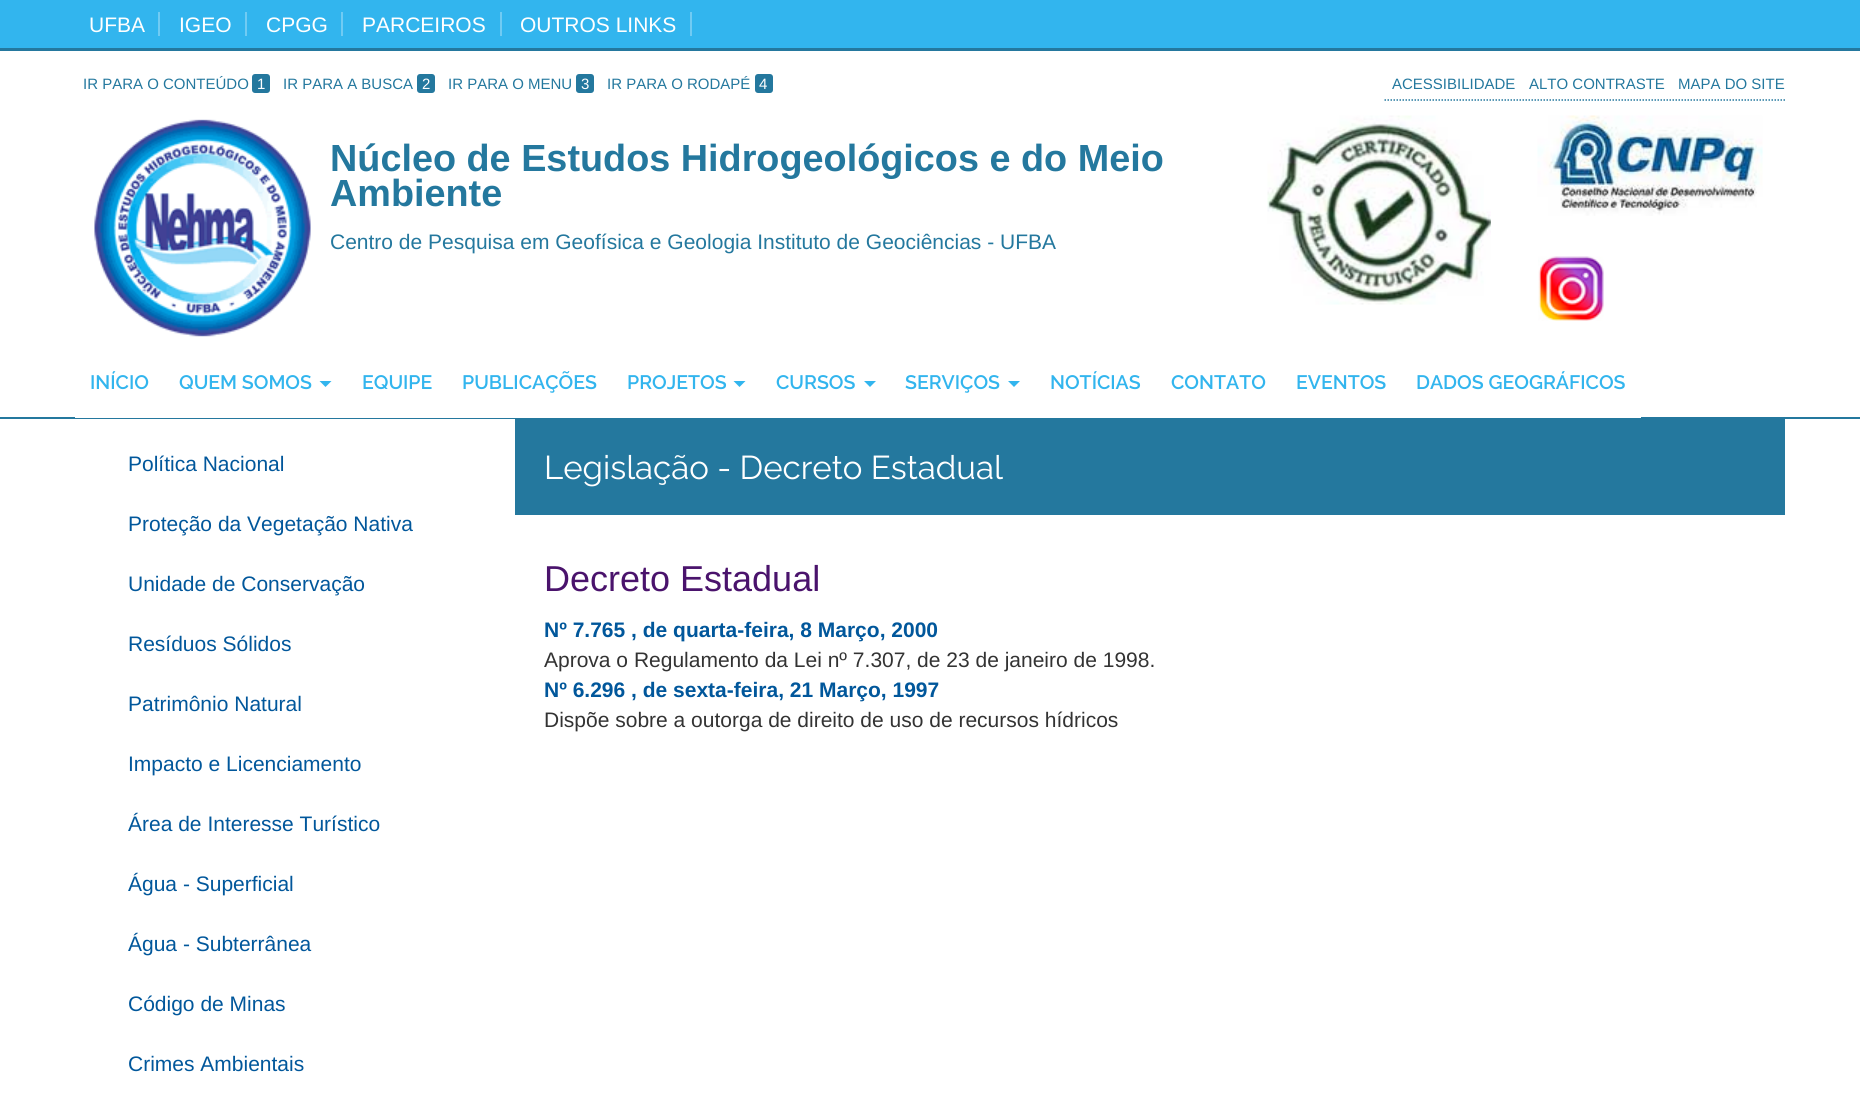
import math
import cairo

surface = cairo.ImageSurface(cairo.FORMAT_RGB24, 1860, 1101)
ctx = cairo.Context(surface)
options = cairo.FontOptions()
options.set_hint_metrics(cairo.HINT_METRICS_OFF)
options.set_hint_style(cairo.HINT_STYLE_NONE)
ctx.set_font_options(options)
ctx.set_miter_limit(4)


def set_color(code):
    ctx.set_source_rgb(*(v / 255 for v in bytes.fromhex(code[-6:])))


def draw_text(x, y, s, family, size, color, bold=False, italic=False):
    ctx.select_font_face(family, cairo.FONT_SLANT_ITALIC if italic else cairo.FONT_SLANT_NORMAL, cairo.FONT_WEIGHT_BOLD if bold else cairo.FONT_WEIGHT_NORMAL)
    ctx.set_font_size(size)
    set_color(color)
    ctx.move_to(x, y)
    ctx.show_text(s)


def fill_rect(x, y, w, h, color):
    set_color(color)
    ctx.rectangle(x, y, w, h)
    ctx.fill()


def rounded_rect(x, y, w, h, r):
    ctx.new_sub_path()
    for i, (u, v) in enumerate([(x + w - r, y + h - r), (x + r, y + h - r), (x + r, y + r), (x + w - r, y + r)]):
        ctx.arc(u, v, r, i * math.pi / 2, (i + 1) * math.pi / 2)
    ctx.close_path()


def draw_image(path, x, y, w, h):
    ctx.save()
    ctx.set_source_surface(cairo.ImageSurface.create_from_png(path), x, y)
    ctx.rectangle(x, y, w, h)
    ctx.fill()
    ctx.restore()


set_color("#ffffff")
ctx.paint()
fill_rect(0, 0, 1860, 48, "#32b5ee")
fill_rect(0, 48, 1860, 3, "#24789e")
draw_text(89, 32, "UFBA", "Liberation Sans", 21, "#ffffff")
fill_rect(158, 12, 2, 24, "#70cbf3")
draw_text(179, 32, "IGEO", "Liberation Sans", 21, "#ffffff")
fill_rect(245, 12, 2, 24, "#70cbf3")
draw_text(266, 32, "CPGG", "Liberation Sans", 21, "#ffffff")
fill_rect(341, 12, 2, 24, "#70cbf3")
draw_text(362, 32, "PARCEIROS", "Liberation Sans", 21, "#ffffff")
fill_rect(500, 12, 2, 24, "#70cbf3")
draw_text(520, 32, "OUTROS LINKS", "Liberation Sans", 21, "#ffffff")
fill_rect(690, 12, 2, 24, "#70cbf3")
draw_text(83, 89, "IR PARA O CONTEÚDO", "Liberation Sans", 15, "#24789e")
rounded_rect(252, 74, 18, 19, 3)
ctx.fill()
draw_text(257, 89, "1", "Liberation Sans", 15, "#ffffff")
draw_text(283, 89, "IR PARA A BUSCA", "Liberation Sans", 15, "#24789e")
rounded_rect(417, 74, 18, 19, 3)
ctx.fill()
draw_text(422, 89, "2", "Liberation Sans", 15, "#ffffff")
draw_text(448, 89, "IR PARA O MENU", "Liberation Sans", 15, "#24789e")
rounded_rect(576, 74, 18, 19, 3)
ctx.fill()
draw_text(581, 89, "3", "Liberation Sans", 15, "#ffffff")
draw_text(607, 89, "IR PARA O RODAPÉ", "Liberation Sans", 15, "#24789e")
rounded_rect(755, 74, 18, 19, 3)
ctx.fill()
draw_text(759, 89, "4", "Liberation Sans", 15, "#ffffff")
ctx.new_path()
ctx.move_to(1384.5, 100)
ctx.line_to(1785, 100)
set_color("#24789e")
ctx.set_line_width(1.5)
ctx.set_dash([1.5, 1.5])
ctx.stroke()
draw_text(1392, 89, "ACESSIBILIDADE", "Liberation Sans", 15, "#24789e")
draw_text(1529, 89, "ALTO CONTRASTE", "Liberation Sans", 15, "#24789e")
draw_text(1678, 89, "MAPA DO SITE", "Liberation Sans", 15, "#24789e")
draw_image("assets/img1.png", 94, 119, 217, 218)
draw_text(330, 171, "Núcleo de Estudos Hidrogeológicos e do Meio", "Liberation Sans", 37.8, "#24789e", bold=True)
draw_text(330, 206, "Ambiente", "Liberation Sans", 37.8, "#24789e", bold=True)
draw_text(330, 249, "Centro de Pesquisa em Geofísica e Geologia Instituto de Geociências - UFBA", "Liberation Sans", 21, "#24789e")
draw_image("assets/img2.png", 1267, 115, 224, 190)
draw_image("assets/img3.png", 1537, 115, 226, 101)
draw_image("assets/img4.png", 1538, 256, 66, 65)
fill_rect(0, 417, 1860, 2, "#24789e")
fill_rect(75, 417, 1566, 1, "#ffffff")
draw_text(90, 389, "INÍCIO", "Raleway SemiBold", 19.5, "#32b5ee")
draw_text(179, 389, "QUEM SOMOS", "Raleway SemiBold", 19.5, "#32b5ee")
ctx.new_path()
ctx.move_to(319.5, 381)
ctx.line_to(331.5, 381)
ctx.line_to(325.5, 387)
ctx.close_path()
ctx.fill()
draw_text(362, 389, "EQUIPE", "Raleway SemiBold", 19.5, "#32b5ee")
draw_text(462, 389, "PUBLICAÇÕES", "Raleway SemiBold", 19.5, "#32b5ee")
draw_text(627, 389, "PROJETOS", "Raleway SemiBold", 19.5, "#32b5ee")
ctx.new_path()
ctx.move_to(733.5, 381)
ctx.line_to(745.5, 381)
ctx.line_to(739.5, 387)
ctx.close_path()
ctx.fill()
draw_text(776, 389, "CURSOS", "Raleway SemiBold", 19.5, "#32b5ee")
ctx.new_path()
ctx.move_to(864, 381)
ctx.line_to(876, 381)
ctx.line_to(870, 387)
ctx.close_path()
ctx.fill()
draw_text(905, 389, "SERVIÇOS", "Raleway SemiBold", 19.5, "#32b5ee")
ctx.new_path()
ctx.move_to(1008, 381)
ctx.line_to(1020, 381)
ctx.line_to(1014, 387)
ctx.close_path()
ctx.fill()
draw_text(1050, 389, "NOTÍCIAS", "Raleway SemiBold", 19.5, "#32b5ee")
draw_text(1171, 389, "CONTATO", "Raleway SemiBold", 19.5, "#32b5ee")
draw_text(1296, 389, "EVENTOS", "Raleway SemiBold", 19.5, "#32b5ee")
draw_text(1416, 389, "DADOS GEOGRÁFICOS", "Raleway SemiBold", 19.5, "#32b5ee")
draw_text(128, 471, "Política Nacional", "Liberation Sans", 21, "#01579b")
draw_text(128, 531, "Proteção da Vegetação Nativa", "Liberation Sans", 21, "#01579b")
draw_text(128, 591, "Unidade de Conservação", "Liberation Sans", 21, "#01579b")
draw_text(128, 651, "Resíduos Sólidos", "Liberation Sans", 21, "#01579b")
draw_text(128, 711, "Patrimônio Natural", "Liberation Sans", 21, "#01579b")
draw_text(128, 771, "Impacto e Licenciamento", "Liberation Sans", 21, "#01579b")
draw_text(128, 831, "Área de Interesse Turístico", "Liberation Sans", 21, "#01579b")
draw_text(128, 891, "Água - Superficial", "Liberation Sans", 21, "#01579b")
draw_text(128, 951, "Água - Subterrânea", "Liberation Sans", 21, "#01579b")
draw_text(128, 1011, "Código de Minas", "Liberation Sans", 21, "#01579b")
draw_text(128, 1071, "Crimes Ambientais", "Liberation Sans", 21, "#01579b")
fill_rect(515, 419, 1270, 96, "#24789e")
draw_text(544, 479, "Legislação - Decreto Estadual", "Raleway", 33, "#ffffff")
draw_text(544, 591, "Decreto Estadual", "Liberation Sans", 36, "#4a136c")
draw_text(544, 637, "Nº 7.765 , de quarta-feira, 8 Março, 2000", "Liberation Sans", 21, "#01579b", bold=True)
draw_text(544, 667, "Aprova o Regulamento da Lei nº 7.307, de 23 de janeiro de 1998.", "Liberation Sans", 21, "#333333")
draw_text(544, 697, "Nº 6.296 , de sexta-feira, 21 Março, 1997", "Liberation Sans", 21, "#01579b", bold=True)
draw_text(544, 727, "Dispõe sobre a outorga de direito de uso de recursos hídricos", "Liberation Sans", 21, "#333333")
surface.write_to_png("output.png")
